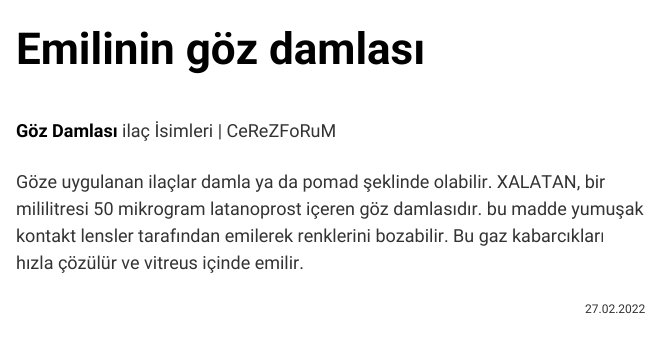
import math
import cairo

surface = cairo.ImageSurface(cairo.FORMAT_RGB24, 661, 340)
ctx = cairo.Context(surface)
options = cairo.FontOptions()
options.set_hint_metrics(cairo.HINT_METRICS_OFF)
options.set_hint_style(cairo.HINT_STYLE_NONE)
ctx.set_font_options(options)
ctx.set_miter_limit(4)


def set_color(code):
    ctx.set_source_rgb(*(v / 255 for v in bytes.fromhex(code[-6:])))


def draw_text(x, y, s, family, size, color, bold=False, italic=False):
    ctx.select_font_face(family, cairo.FONT_SLANT_ITALIC if italic else cairo.FONT_SLANT_NORMAL, cairo.FONT_WEIGHT_BOLD if bold else cairo.FONT_WEIGHT_NORMAL)
    ctx.set_font_size(size)
    set_color(color)
    ctx.move_to(x, y)
    ctx.show_text(s)


set_color("#ffffff")
ctx.paint()
draw_text(16, 64, "Emilinin göz damlası", "Roboto", 44, "#000000", bold=True)
draw_text(16, 137, "Göz Damlası", "Roboto", 18, "#000000", bold=True)
draw_text(122, 137, "ilaç İsimleri | CeReZFoRuM", "Roboto", 18, "#333333")
draw_text(16, 188, "Göze uygulanan ilaçlar damla ya da pomad şeklinde olabilir. XALATAN, bir", "Roboto", 18, "#333333")
draw_text(16, 215, "mililitresi 50 mikrogram latanoprost içeren göz damlasıdır. bu madde yumuşak", "Roboto", 18, "#333333")
draw_text(16, 242, "kontakt lensler tarafından emilerek renklerini bozabilir. Bu gaz kabarcıkları", "Roboto", 18, "#333333")
draw_text(16, 269, "hızla çözülür ve vitreus içinde emilir.", "Roboto", 18, "#333333")
draw_text(585, 313, "27.02.2022", "Roboto", 12, "#333333")
surface.write_to_png("output.png")
